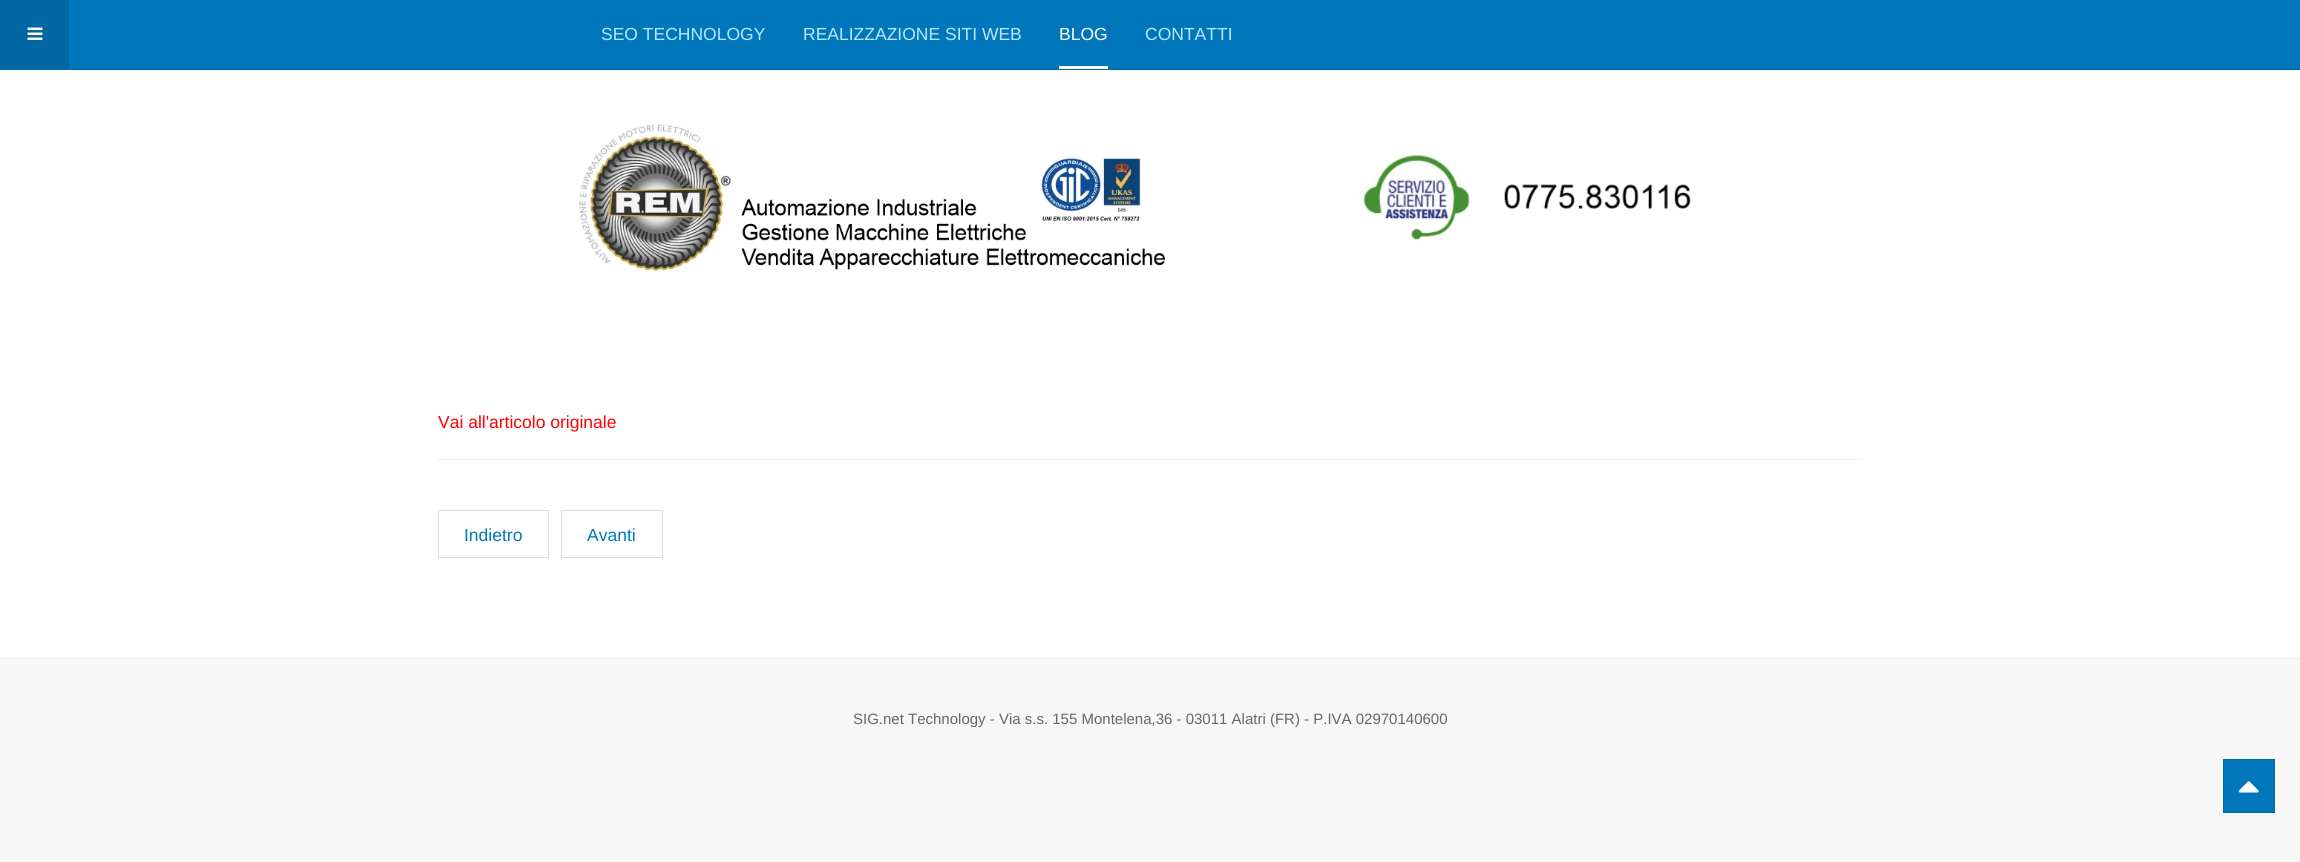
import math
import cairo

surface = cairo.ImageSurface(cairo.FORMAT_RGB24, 2300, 862)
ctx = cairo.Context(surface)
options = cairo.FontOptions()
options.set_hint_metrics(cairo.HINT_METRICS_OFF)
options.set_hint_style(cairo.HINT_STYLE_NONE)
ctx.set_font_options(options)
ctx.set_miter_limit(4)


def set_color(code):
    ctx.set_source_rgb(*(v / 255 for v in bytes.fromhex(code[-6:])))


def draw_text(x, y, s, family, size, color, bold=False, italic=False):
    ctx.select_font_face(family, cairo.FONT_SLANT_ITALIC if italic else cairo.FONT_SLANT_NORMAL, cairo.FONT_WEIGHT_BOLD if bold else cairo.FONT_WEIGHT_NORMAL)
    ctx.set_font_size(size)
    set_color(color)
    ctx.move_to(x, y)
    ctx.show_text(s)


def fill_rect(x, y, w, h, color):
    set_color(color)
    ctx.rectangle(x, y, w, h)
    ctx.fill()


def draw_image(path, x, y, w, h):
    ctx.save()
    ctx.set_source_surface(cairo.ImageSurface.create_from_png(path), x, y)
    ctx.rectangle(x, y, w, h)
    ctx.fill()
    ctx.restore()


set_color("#ffffff")
ctx.paint()
fill_rect(69, 0, 2231, 69, "#0077bb")
fill_rect(0, 69, 2300, 1, "#0067a2")
fill_rect(0, 0, 69, 69, "#0067a2")
draw_image("assets/img1.png", 27, 27, 16, 13)
draw_text(601, 40, "SEO TECHNOLOGY", "Liberation Sans", 17.5, "#bbe6ff")
draw_text(803, 40, "REALIZZAZIONE SITI WEB", "Liberation Sans", 17.5, "#bbe6ff")
fill_rect(1059, 66, 49, 3, "#ffffff")
draw_text(1059, 40, "BLOG", "Liberation Sans", 17.5, "#ffffff")
draw_text(1145, 40, "CONTATTI", "Liberation Sans", 17.5, "#bbe6ff")
draw_image("assets/img2.png", 579, 124, 1112, 148)
draw_text(438, 428, "Vai all'articolo originale", "Liberation Sans", 17.5, "#ff0000")
fill_rect(438, 459, 1425, 1, "#eeeeee")
ctx.rectangle(438.5, 510.5, 110, 47)
set_color("#dddddd")
ctx.set_line_width(1)
ctx.stroke()
draw_text(464, 541, "Indietro", "Liberation Sans", 17.5, "#0077bb")
ctx.rectangle(561.5, 510.5, 101, 47)
set_color("#dddddd")
ctx.stroke()
draw_text(587, 541, "Avanti", "Liberation Sans", 17.5, "#0077bb")
fill_rect(0, 659, 2300, 203, "#f7f7f7")
fill_rect(0, 658, 2300, 1, "#eeeeee")
draw_text(853, 724, "SIG.net Technology - Via s.s. 155 Montelena,36 - 03011 Alatri (FR) - P.IVA 02970140600", "Liberation Sans", 15, "#666666")
set_color("#0077bb")
ctx.rectangle(2223.5, 759.5, 51, 53)
ctx.fill_preserve()
set_color("#0067a2")
ctx.stroke()
draw_image("assets/img3.png", 2238, 781, 21, 12)
surface.write_to_png("output.png")
